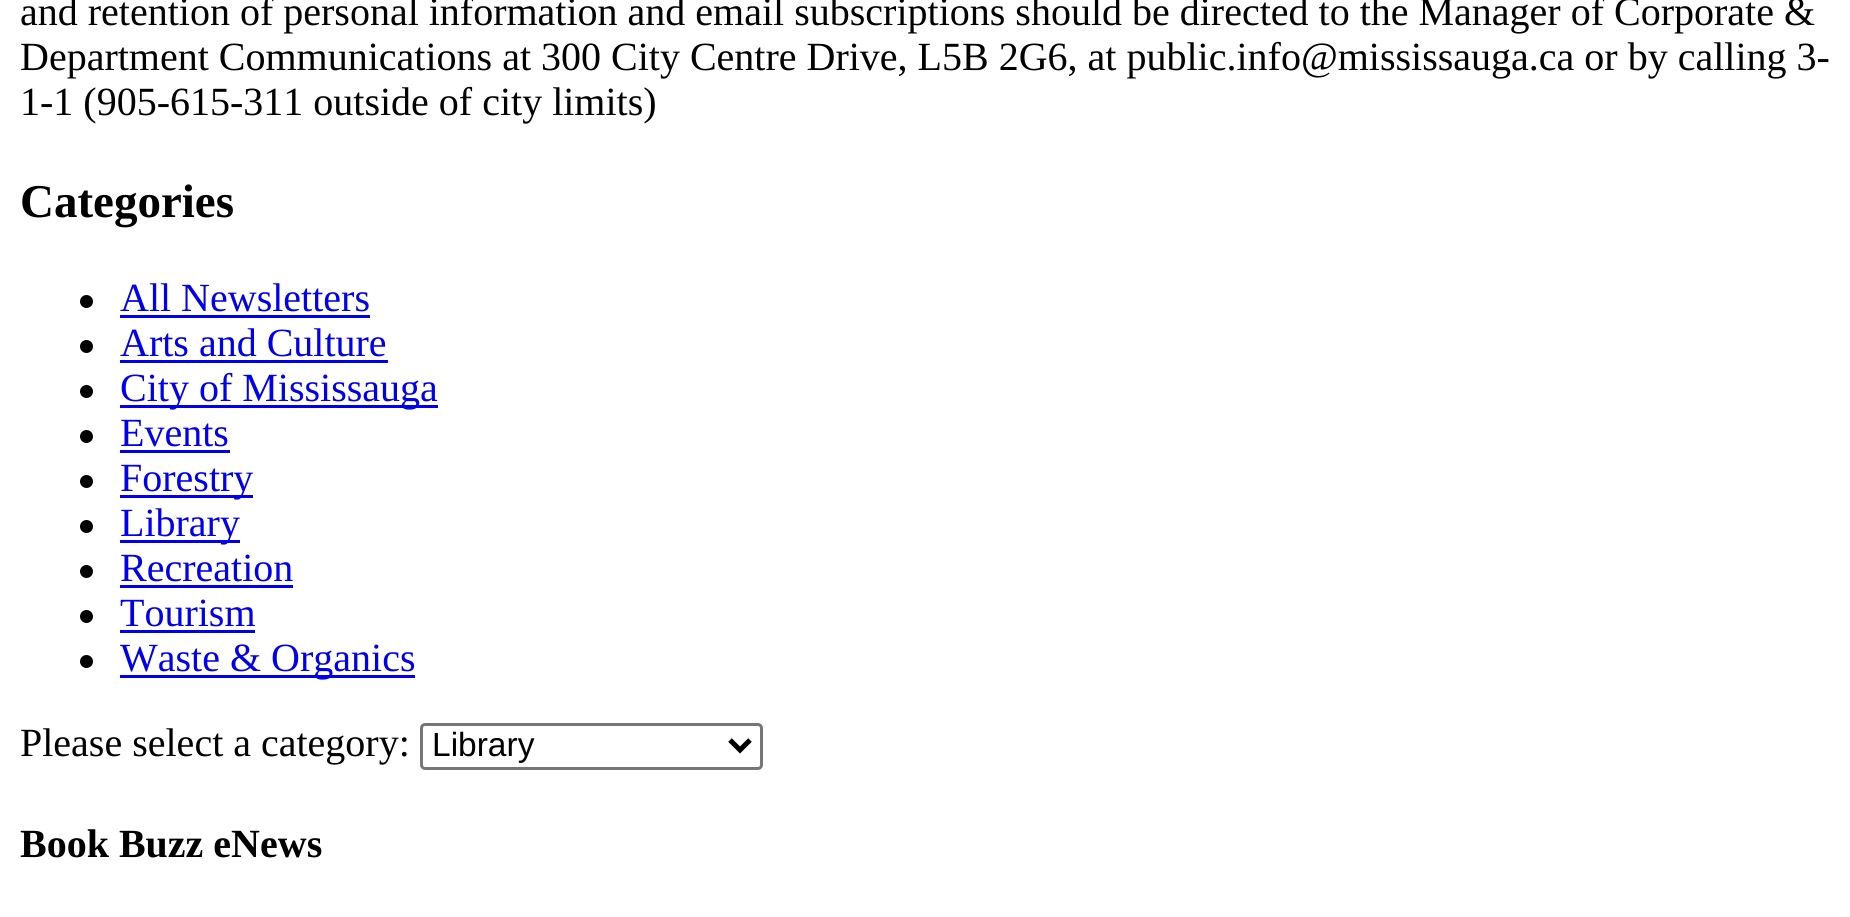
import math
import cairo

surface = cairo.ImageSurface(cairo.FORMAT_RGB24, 1850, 917)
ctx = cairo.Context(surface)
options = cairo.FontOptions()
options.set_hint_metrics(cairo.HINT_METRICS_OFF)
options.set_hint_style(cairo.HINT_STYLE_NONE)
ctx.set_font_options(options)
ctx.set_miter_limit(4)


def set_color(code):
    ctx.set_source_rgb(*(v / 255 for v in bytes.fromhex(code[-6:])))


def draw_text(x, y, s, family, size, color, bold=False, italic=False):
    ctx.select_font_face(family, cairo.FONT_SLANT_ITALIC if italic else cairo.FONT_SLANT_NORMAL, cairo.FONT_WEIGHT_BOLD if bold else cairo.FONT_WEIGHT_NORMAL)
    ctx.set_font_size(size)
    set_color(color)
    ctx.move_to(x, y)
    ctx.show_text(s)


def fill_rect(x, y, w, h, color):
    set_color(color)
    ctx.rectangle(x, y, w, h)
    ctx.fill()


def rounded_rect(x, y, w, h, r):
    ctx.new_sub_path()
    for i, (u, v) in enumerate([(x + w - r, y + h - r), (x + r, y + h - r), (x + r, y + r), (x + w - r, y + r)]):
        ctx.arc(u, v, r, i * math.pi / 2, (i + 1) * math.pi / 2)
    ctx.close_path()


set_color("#ffffff")
ctx.paint()
draw_text(20, 25, "and retention of personal information and email subscriptions should be directed to the Manager of Corporate &", "Liberation Serif", 40, "#000000")
draw_text(20, 70, "Department Communications at 300 City Centre Drive, L5B 2G6, at public.info@mississauga.ca or by calling 3-", "Liberation Serif", 40, "#000000")
draw_text(20, 115, "1-1 (905-615-311 outside of city limits)", "Liberation Serif", 40, "#000000")
draw_text(20, 217, "Categories", "Liberation Serif", 47, "#000000", bold=True)
ctx.new_path()
ctx.arc(86.5, 301.5, 6.5, 0, 2 * math.pi)
ctx.fill()
draw_text(120, 311, "All Newsletters", "Liberation Serif", 40, "#0000ee")
fill_rect(120, 315, 250, 3, "#0000ee")
set_color("#000000")
ctx.new_path()
ctx.arc(86.5, 346.5, 6.5, 0, 2 * math.pi)
ctx.fill()
draw_text(120, 356, "Arts and Culture", "Liberation Serif", 40, "#0000ee")
fill_rect(120, 360, 268, 3, "#0000ee")
set_color("#000000")
ctx.new_path()
ctx.arc(86.5, 391.5, 6.5, 0, 2 * math.pi)
ctx.fill()
fill_rect(120, 405, 318, 3, "#0000ee")
draw_text(120, 401, "City of Mississauga", "Liberation Serif", 40, "#0000ee")
set_color("#000000")
ctx.new_path()
ctx.arc(86.5, 436.5, 6.5, 0, 2 * math.pi)
ctx.fill()
draw_text(120, 446, "Events", "Liberation Serif", 40, "#0000ee")
fill_rect(120, 450, 110, 3, "#0000ee")
set_color("#000000")
ctx.new_path()
ctx.arc(86.5, 481.5, 6.5, 0, 2 * math.pi)
ctx.fill()
fill_rect(120, 495, 133, 3, "#0000ee")
draw_text(120, 491, "Forestry", "Liberation Serif", 40, "#0000ee")
set_color("#000000")
ctx.new_path()
ctx.arc(86.5, 526.5, 6.5, 0, 2 * math.pi)
ctx.fill()
fill_rect(120, 540, 120, 3, "#0000ee")
draw_text(120, 536, "Library", "Liberation Serif", 40, "#0000ee")
set_color("#000000")
ctx.new_path()
ctx.arc(86.5, 571.5, 6.5, 0, 2 * math.pi)
ctx.fill()
draw_text(120, 581, "Recreation", "Liberation Serif", 40, "#0000ee")
fill_rect(120, 585, 173, 3, "#0000ee")
set_color("#000000")
ctx.new_path()
ctx.arc(86.5, 616.5, 6.5, 0, 2 * math.pi)
ctx.fill()
draw_text(120, 626, "Tourism", "Liberation Serif", 40, "#0000ee")
fill_rect(120, 630, 135, 3, "#0000ee")
set_color("#000000")
ctx.new_path()
ctx.arc(86.5, 661.5, 6.5, 0, 2 * math.pi)
ctx.fill()
fill_rect(120, 675, 295, 3, "#0000ee")
draw_text(120, 671, "Waste & Organics", "Liberation Serif", 40, "#0000ee")
draw_text(20, 756, "Please select a category:", "Liberation Serif", 40, "#000000")
rounded_rect(421.5, 724.5, 340, 44, 3.5)
set_color("#767676")
ctx.set_line_width(3)
ctx.stroke()
ctx.new_path()
ctx.move_to(730, 740)
ctx.line_to(740, 750)
ctx.line_to(750, 740)
set_color("#000000")
ctx.set_line_width(5)
ctx.stroke()
draw_text(432, 756, "Library", "Liberation Sans", 33.5, "#000000")
draw_text(20, 857, "Book Buzz eNews", "Liberation Serif", 40, "#000000", bold=True)
surface.write_to_png("output.png")
